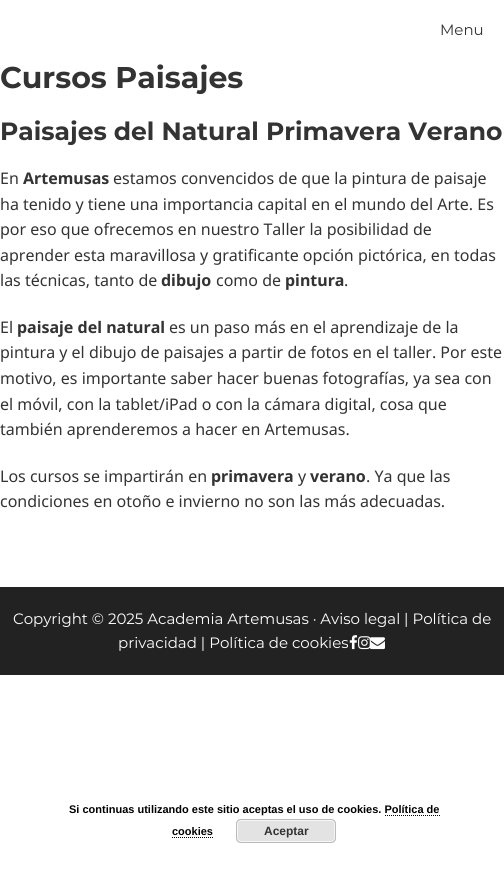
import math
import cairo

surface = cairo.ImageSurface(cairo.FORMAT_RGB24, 504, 881)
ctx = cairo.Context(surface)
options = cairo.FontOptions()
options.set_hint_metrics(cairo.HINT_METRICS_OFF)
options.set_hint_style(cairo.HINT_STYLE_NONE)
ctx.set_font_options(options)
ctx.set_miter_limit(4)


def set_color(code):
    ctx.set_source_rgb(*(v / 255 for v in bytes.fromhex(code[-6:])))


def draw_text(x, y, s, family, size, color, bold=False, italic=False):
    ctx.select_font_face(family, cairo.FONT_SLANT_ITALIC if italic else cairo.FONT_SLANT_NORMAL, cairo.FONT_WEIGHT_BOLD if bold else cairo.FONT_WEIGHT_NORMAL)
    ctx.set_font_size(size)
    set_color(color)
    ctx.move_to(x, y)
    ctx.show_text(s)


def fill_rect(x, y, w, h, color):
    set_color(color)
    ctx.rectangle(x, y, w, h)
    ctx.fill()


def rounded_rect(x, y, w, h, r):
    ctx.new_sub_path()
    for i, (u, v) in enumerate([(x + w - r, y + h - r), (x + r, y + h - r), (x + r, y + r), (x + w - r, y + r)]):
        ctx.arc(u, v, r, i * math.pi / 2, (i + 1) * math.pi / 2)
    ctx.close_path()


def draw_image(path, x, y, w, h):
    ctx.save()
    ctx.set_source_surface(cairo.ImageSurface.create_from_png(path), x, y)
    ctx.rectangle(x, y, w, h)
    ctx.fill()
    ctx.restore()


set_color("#ffffff")
ctx.paint()
draw_text(440, 35, "Menu", "Montserrat", 15, "#333333")
draw_text(0, 88, "Cursos Paisajes", "Montserrat", 30, "#333333", bold=True)
draw_text(0, 140, "Paisajes del Natural Primavera Verano", "Montserrat", 25, "#333333", bold=True)
draw_text(0, 184, "En", "Noto Sans", 16, "#333333")
draw_text(23, 184, "Artemusas", "Noto Sans", 16, "#333333", bold=True)
draw_text(113, 184, "estamos convencidos de que la pintura de paisaje", "Noto Sans", 16, "#333333")
draw_text(0, 210, "ha tenido y tiene una importancia capital en el mundo del Arte. Es", "Noto Sans", 16, "#333333")
draw_text(0, 235, "por eso que ofrecemos en nuestro Taller la posibilidad de", "Noto Sans", 16, "#333333")
draw_text(0, 261, "aprender esta maravillosa y gratificante opción pictórica, en todas", "Noto Sans", 16, "#333333")
draw_text(0, 286, "las técnicas, tanto de", "Noto Sans", 16, "#333333")
draw_text(161, 286, "dibujo", "Noto Sans", 16, "#333333", bold=True)
draw_text(216, 286, "como de", "Noto Sans", 16, "#333333")
draw_text(285, 286, "pintura", "Noto Sans", 16, "#333333", bold=True)
draw_text(344, 286, ".", "Noto Sans", 16, "#333333")
draw_text(0, 333, "El", "Noto Sans", 16, "#333333")
draw_text(17, 333, "paisaje del natural", "Noto Sans", 16, "#333333", bold=True)
draw_text(169, 333, "es un paso más en el aprendizaje de la", "Noto Sans", 16, "#333333")
draw_text(0, 358, "pintura y el dibujo de paisajes a partir de fotos en el taller. Por este", "Noto Sans", 16, "#333333")
draw_text(0, 384, "motivo, es importante saber hacer buenas fotografías, ya sea con", "Noto Sans", 16, "#333333")
draw_text(0, 410, "el móvil, con la tablet/iPad o con la cámara digital, cosa que", "Noto Sans", 16, "#333333")
draw_text(0, 435, "también aprenderemos a hacer en Artemusas.", "Noto Sans", 16, "#333333")
draw_text(0, 482, "Los cursos se impartirán en", "Noto Sans", 16, "#333333")
draw_text(211, 482, "primavera", "Noto Sans", 16, "#333333", bold=True)
draw_text(298, 482, "y", "Noto Sans", 16, "#333333")
draw_text(310, 482, "verano", "Noto Sans", 16, "#333333", bold=True)
draw_text(366, 482, ". Ya que las", "Noto Sans", 16, "#333333")
draw_text(0, 507, "condiciones en otoño e invierno no son las más adecuadas.", "Noto Sans", 16, "#333333")
fill_rect(0, 587, 504, 88, "#222222")
draw_text(13, 624, "Copyright © 2025 Academia Artemusas · Aviso legal | Política de", "Montserrat", 15, "#ffffff")
draw_text(118, 648, "privacidad | Política de cookies", "Montserrat", 15, "#ffffff")
draw_image("assets/img1.png", 349, 635, 9, 15)
draw_image("assets/img2.png", 358, 636, 13, 14)
draw_image("assets/img3.png", 370, 637, 15, 13)
draw_text(69, 813, "Si continuas utilizando este sitio aceptas el uso de cookies. Política de", "Liberation Sans", 11, "#000000", bold=True)
draw_text(172, 835, "cookies", "Liberation Sans", 11, "#000000", bold=True)
ctx.new_path()
ctx.move_to(385, 815.5)
ctx.line_to(440, 815.5)
ctx.set_line_width(1)
ctx.set_dash([1, 1])
ctx.stroke()
ctx.new_path()
ctx.move_to(172, 837.5)
ctx.line_to(213, 837.5)
ctx.stroke()
set_color("#e3e3e3")
rounded_rect(236, 819, 100, 24, 5)
ctx.fill()
rounded_rect(237.5, 820.5, 97, 21, 3.5)
set_color("#f6f6f6")
ctx.set_dash([])
ctx.stroke()
rounded_rect(236.5, 819.5, 99, 23, 4.5)
set_color("#bbbbbb")
ctx.stroke()
draw_text(264, 835, "Aceptar", "Liberation Sans", 12, "#333333", bold=True)
surface.write_to_png("output.png")
